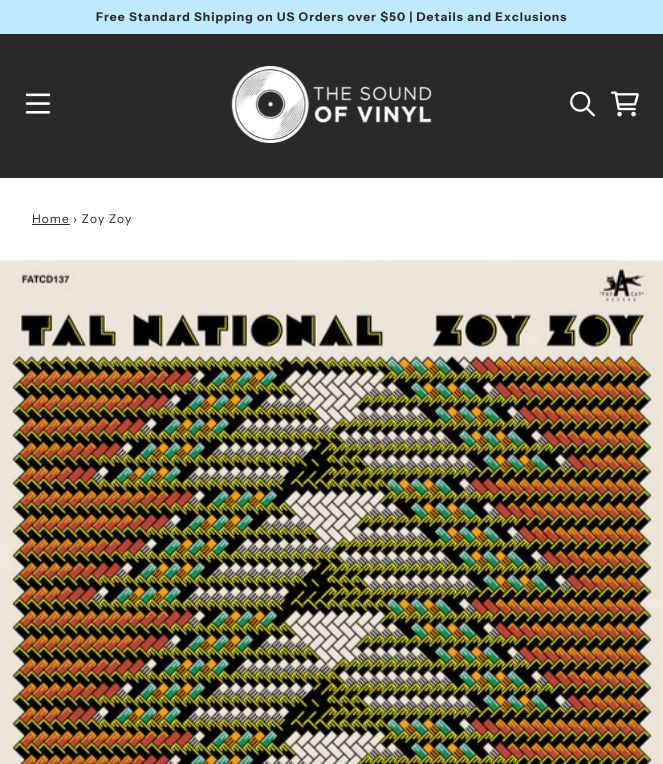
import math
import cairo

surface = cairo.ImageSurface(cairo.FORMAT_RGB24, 663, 764)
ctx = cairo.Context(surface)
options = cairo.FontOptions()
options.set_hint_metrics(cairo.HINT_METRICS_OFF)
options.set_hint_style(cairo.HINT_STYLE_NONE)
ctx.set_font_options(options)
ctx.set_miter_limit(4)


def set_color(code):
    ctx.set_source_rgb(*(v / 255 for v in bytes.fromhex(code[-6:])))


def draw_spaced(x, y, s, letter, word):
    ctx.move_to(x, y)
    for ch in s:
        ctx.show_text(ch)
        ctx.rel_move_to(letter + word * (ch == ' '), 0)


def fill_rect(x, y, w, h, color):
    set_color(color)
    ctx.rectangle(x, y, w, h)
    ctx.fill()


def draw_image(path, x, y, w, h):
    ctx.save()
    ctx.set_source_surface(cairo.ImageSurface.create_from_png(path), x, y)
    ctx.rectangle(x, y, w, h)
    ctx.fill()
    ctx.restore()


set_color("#ffffff")
ctx.paint()
fill_rect(0, 0, 663, 34, "#bfe9fd")
ctx.select_font_face("Instrument Sans", cairo.FONT_SLANT_NORMAL, cairo.FONT_WEIGHT_BOLD)
ctx.set_font_size(12)
set_color("#2a2828")
draw_spaced(96, 21, "Free Standard Shipping on US Orders over $50 | Details and Exclusions", 1, 0)
fill_rect(0, 34, 663, 144, "#2a2828")
draw_image("assets/img1.png", 25, 93, 26, 21)
draw_image("assets/img2.png", 231, 66, 201, 77)
draw_image("assets/img3.png", 570, 91, 25, 26)
draw_image("assets/img4.png", 611, 91, 28, 26)
fill_rect(32, 224, 38, 1, "#2a2828")
ctx.select_font_face("Instrument Sans")
draw_spaced(32, 223, "Home › Zoy Zoy", 1, 0)
draw_image("assets/img5.png", 0, 260, 663, 504)
surface.write_to_png("output.png")
